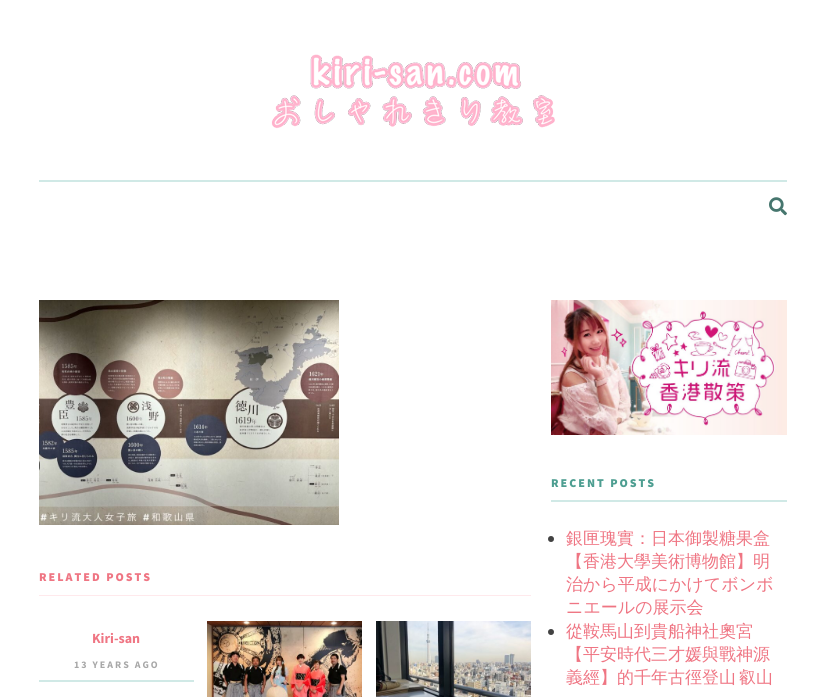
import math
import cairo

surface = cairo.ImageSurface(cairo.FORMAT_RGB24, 826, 697)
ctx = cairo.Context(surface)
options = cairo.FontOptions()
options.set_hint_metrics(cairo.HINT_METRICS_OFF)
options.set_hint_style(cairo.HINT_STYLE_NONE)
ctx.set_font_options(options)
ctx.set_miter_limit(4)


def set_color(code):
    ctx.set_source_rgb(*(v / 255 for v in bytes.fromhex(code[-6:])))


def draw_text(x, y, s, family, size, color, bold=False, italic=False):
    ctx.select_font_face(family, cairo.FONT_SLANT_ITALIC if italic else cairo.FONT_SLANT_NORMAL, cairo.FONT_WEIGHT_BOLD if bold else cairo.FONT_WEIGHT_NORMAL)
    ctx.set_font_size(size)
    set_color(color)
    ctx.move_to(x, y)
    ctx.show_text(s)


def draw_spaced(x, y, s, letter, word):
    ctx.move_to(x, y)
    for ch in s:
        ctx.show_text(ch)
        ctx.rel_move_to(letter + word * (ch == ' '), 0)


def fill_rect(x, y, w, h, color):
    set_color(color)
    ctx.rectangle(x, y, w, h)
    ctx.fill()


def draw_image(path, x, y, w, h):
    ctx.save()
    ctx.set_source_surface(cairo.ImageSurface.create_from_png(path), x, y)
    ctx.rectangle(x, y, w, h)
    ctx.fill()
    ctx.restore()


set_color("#ffffff")
ctx.paint()
draw_image("assets/img1.png", 271, 54, 284, 75)
fill_rect(39, 180, 748, 2, "#d0e9e6")
draw_image("assets/img2.png", 769, 197, 18, 19)
draw_image("assets/img3.png", 39, 300, 300, 225)
fill_rect(39, 595, 492, 1, "#ffe9ec")
ctx.select_font_face("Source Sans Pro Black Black")
ctx.set_font_size(12)
set_color("#ef7583")
draw_spaced(39, 581, "RELATED POSTS", 2, 0)
fill_rect(39, 680, 155, 2, "#d0e9e6")
draw_text(92, 643, "Kiri-san", "Source Sans Pro", 14, "#ef7583", bold=True)
ctx.set_font_size(10)
set_color("#a7a7a7")
draw_spaced(74, 668, "13 YEARS AGO", 2, 0)
draw_image("assets/img4.png", 207, 621, 155, 76)
draw_image("assets/img5.png", 376, 621, 155, 76)
draw_image("assets/img6.png", 551, 300, 236, 135)
fill_rect(551, 500, 236, 2, "#d0e9e6")
ctx.select_font_face("Source Sans Pro Black Black")
ctx.set_font_size(12)
set_color("#4d9e91")
draw_spaced(551, 487, "RECENT POSTS", 2, 0)
set_color("#424242")
ctx.new_path()
ctx.arc(551, 539, 3, 0, 2 * math.pi)
ctx.fill()
draw_text(566, 544, "銀匣瑰實：日本御製糖果盒", "WenQuanYi Zen Hei Medium", 17, "#ef7583")
draw_text(566, 567, "【香港大學美術博物館】明", "WenQuanYi Zen Hei Medium", 17, "#ef7583")
draw_text(566, 590, "治から平成にかけてボンボ", "WenQuanYi Zen Hei Medium", 17, "#ef7583")
draw_text(566, 613, "ニエールの展示会", "WenQuanYi Zen Hei Medium", 17, "#ef7583")
set_color("#424242")
ctx.new_path()
ctx.arc(551, 632, 3, 0, 2 * math.pi)
ctx.fill()
draw_text(566, 637, "從鞍馬山到貴船神社奧宮", "WenQuanYi Zen Hei Medium", 17, "#ef7583")
draw_text(566, 660, "【平安時代三才媛與戰神源", "WenQuanYi Zen Hei Medium", 17, "#ef7583")
draw_spaced(566, 683, "義經】的千年古徑登山 叡山", 0, -2)
surface.write_to_png("output.png")
